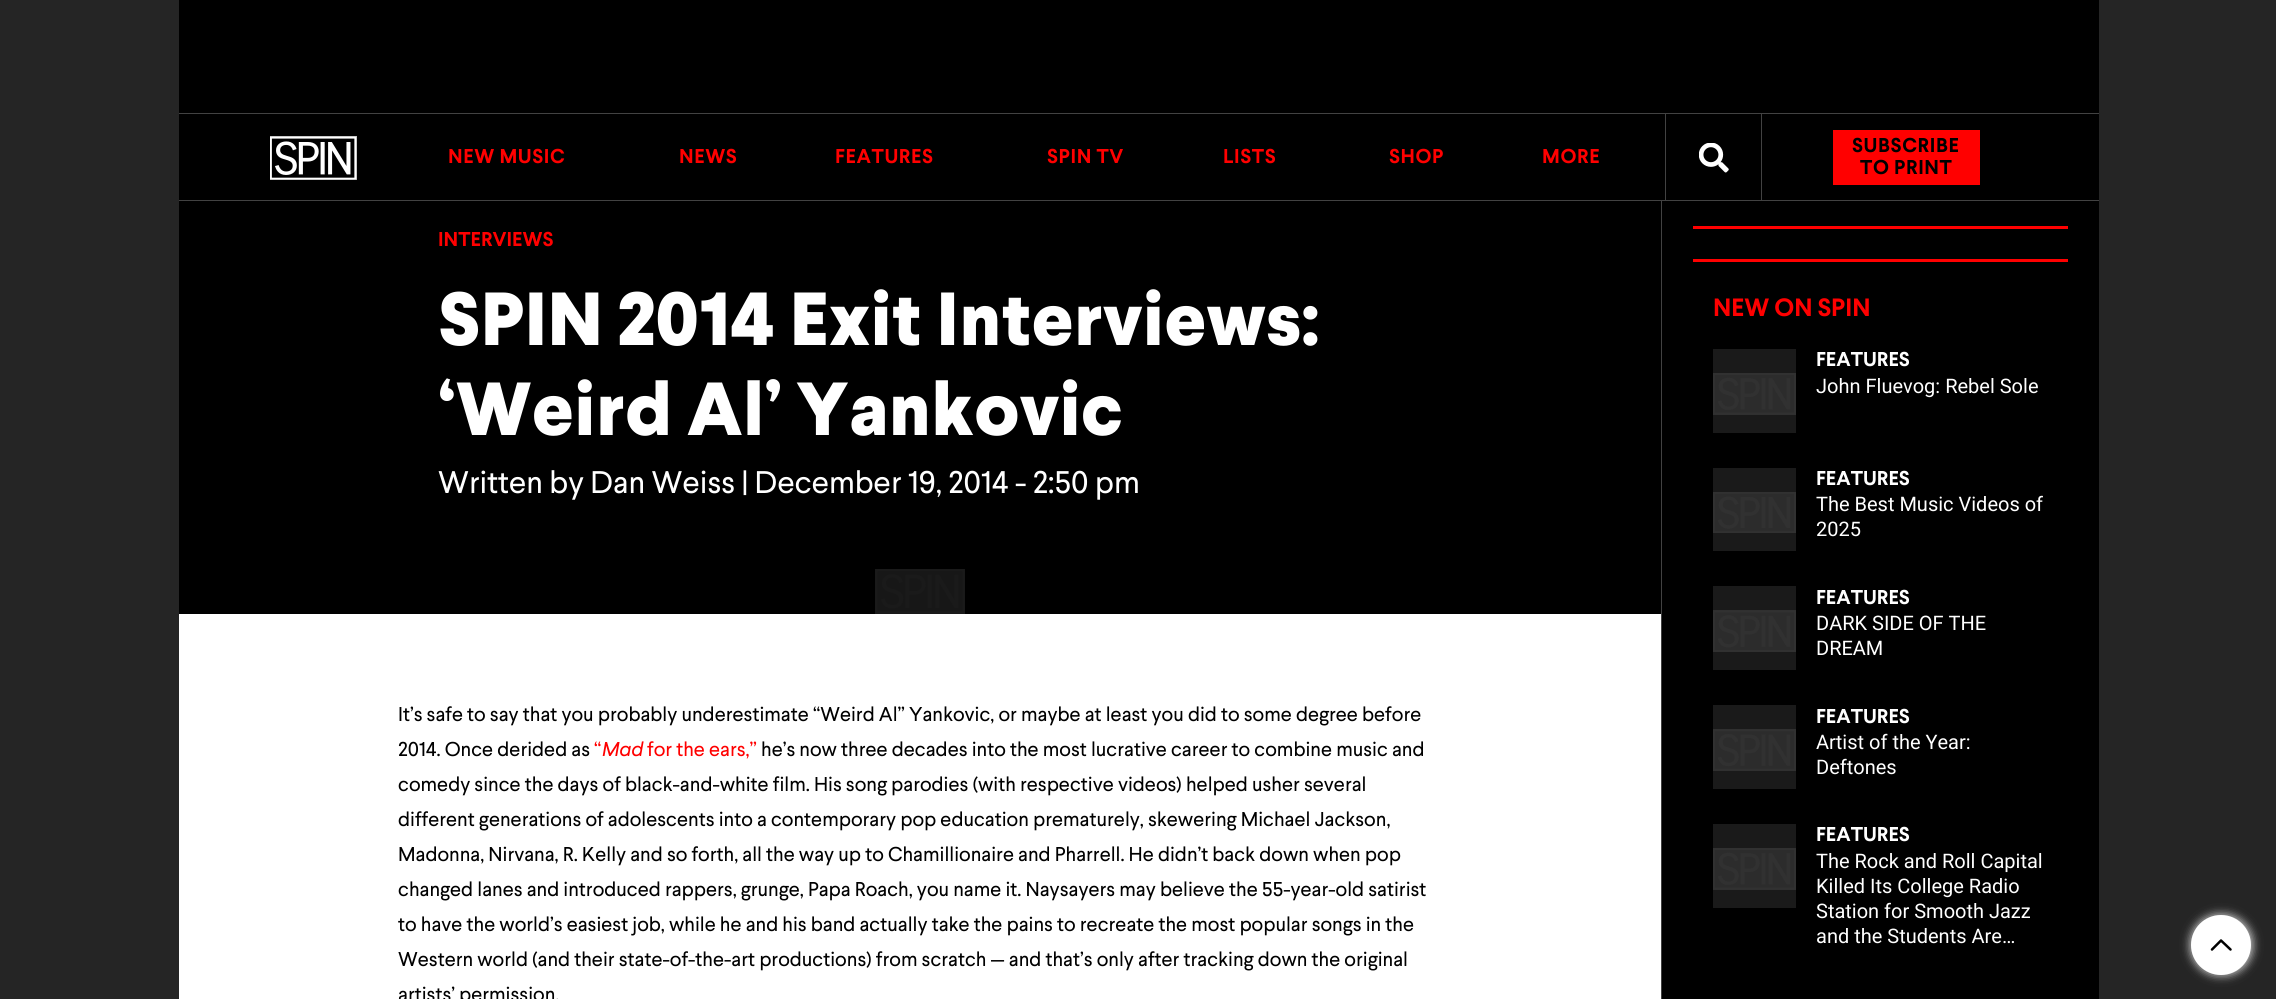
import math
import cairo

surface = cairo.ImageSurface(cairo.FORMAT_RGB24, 2276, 999)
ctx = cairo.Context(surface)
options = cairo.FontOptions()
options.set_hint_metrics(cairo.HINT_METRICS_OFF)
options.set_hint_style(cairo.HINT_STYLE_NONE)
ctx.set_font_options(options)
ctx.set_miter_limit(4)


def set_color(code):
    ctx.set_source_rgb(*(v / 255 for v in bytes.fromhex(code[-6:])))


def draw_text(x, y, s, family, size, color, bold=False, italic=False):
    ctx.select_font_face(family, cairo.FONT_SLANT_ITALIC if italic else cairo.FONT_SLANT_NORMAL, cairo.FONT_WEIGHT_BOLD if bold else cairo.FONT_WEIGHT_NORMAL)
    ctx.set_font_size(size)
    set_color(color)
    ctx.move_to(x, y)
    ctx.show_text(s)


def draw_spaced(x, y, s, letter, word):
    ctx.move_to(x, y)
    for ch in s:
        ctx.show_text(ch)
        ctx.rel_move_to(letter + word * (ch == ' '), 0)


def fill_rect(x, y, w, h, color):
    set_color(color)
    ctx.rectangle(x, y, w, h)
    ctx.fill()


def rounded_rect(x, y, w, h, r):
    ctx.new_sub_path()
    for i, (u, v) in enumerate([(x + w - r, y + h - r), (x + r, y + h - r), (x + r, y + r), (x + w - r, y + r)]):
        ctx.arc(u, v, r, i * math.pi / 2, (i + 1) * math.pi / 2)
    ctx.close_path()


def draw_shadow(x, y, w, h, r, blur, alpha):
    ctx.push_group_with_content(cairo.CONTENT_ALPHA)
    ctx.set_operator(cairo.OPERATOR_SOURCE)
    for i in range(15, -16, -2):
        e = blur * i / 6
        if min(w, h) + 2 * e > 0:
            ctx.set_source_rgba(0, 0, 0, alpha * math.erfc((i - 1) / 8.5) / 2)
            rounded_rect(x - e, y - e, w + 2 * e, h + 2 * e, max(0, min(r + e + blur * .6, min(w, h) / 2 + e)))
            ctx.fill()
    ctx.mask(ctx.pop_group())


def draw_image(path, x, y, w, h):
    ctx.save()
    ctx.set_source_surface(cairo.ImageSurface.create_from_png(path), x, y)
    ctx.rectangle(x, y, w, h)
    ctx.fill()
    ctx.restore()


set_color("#252525")
ctx.paint()
fill_rect(179, 0, 1920, 113, "#000000")
fill_rect(179, 113, 1920, 1, "#424242")
fill_rect(179, 114, 1920, 86, "#000000")
fill_rect(179, 200, 1920, 1, "#424242")
draw_image("assets/img1.png", 270, 136, 87, 44)
fill_rect(1665, 114, 1, 87, "#424242")
ctx.select_font_face("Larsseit", cairo.FONT_SLANT_NORMAL, cairo.FONT_WEIGHT_BOLD)
ctx.set_font_size(20)
set_color("#ff0000")
draw_spaced(448, 163, "NEW MUSIC", 0.6, 0)
draw_spaced(679, 163, "NEWS", 0.6, 0)
draw_spaced(835, 163, "FEATURES", 0.6, 0)
draw_spaced(1047, 163, "SPIN TV", 0.6, 0)
draw_spaced(1223, 163, "LISTS", 0.6, 0)
draw_spaced(1389, 163, "SHOP", 0.6, 0)
draw_spaced(1542, 163, "MORE", 0.6, 0)
fill_rect(1761, 114, 1, 87, "#424242")
draw_image("assets/img2.png", 1699, 143, 30, 30)
fill_rect(1833, 130, 147, 55, "#ff0000")
set_color("#000000")
draw_spaced(1852, 152, "SUBSCRIBE", 0.6, 0)
draw_spaced(1860, 174, "TO PRINT", 0.6, 0)
fill_rect(179, 201, 1920, 798, "#000000")
draw_text(438, 246, "INTERVIEWS", "Larsseit", 20, "#ff0000", bold=True)
draw_text(438, 345, "SPIN 2014 Exit Interviews:", "Larsseit ExtraBold", 75, "#ffffff")
draw_text(438, 435, "‘Weird Al’ Yankovic", "Larsseit ExtraBold", 75, "#ffffff")
draw_text(438, 493, "Written by Dan Weiss | December 19, 2014 - 2:50 pm", "Larsseit", 31.25, "#ffffff")
draw_image("assets/img3.png", 875, 569, 90, 45)
fill_rect(179, 614, 1482, 385, "#ffffff")
draw_text(398, 721, "It’s safe to say that you probably underestimate “Weird Al” Yankovic, or maybe at least you did to some degree before", "Larsseit", 20, "#000000")
draw_text(398, 756, "2014. Once derided as", "Larsseit", 20, "#000000")
draw_text(594, 756, "“", "Larsseit", 20, "#ff0000")
draw_text(602, 756, "Mad", "Larsseit", 20, "#ff0000", italic=True)
draw_text(647, 756, "for the ears,”", "Larsseit", 20, "#ff0000")
draw_text(761, 756, "he’s now three decades into the most lucrative career to combine music and", "Larsseit", 20, "#000000")
draw_text(398, 791, "comedy since the days of black-and-white film. His song parodies (with respective videos) helped usher several", "Larsseit", 20, "#000000")
draw_text(398, 826, "different generations of adolescents into a contemporary pop education prematurely, skewering Michael Jackson,", "Larsseit", 20, "#000000")
draw_text(398, 861, "Madonna, Nirvana, R. Kelly and so forth, all the way up to Chamillionaire and Pharrell. He didn’t back down when pop", "Larsseit", 20, "#000000")
draw_text(398, 896, "changed lanes and introduced rappers, grunge, Papa Roach, you name it. Naysayers may believe the 55-year-old satirist", "Larsseit", 20, "#000000")
draw_text(398, 931, "to have the world’s easiest job, while he and his band actually take the pains to recreate the most popular songs in the", "Larsseit", 20, "#000000")
draw_text(398, 966, "Western world (and their state-of-the-art productions) from scratch — and that’s only after tracking down the original", "Larsseit", 20, "#000000")
draw_text(398, 1001, "artists’ permission.", "Larsseit", 20, "#000000")
fill_rect(1661, 201, 1, 798, "#424242")
fill_rect(1693, 226, 375, 3, "#ff0000")
fill_rect(1693, 259, 375, 3, "#ff0000")
draw_text(1713, 316, "NEW ON SPIN", "Larsseit", 25, "#ff0000", bold=True)
fill_rect(1713, 349, 83, 84, "#1a1a1a")
draw_image("assets/img4.png", 1713, 373, 83, 42)
draw_text(1816, 366, "FEATURES", "Larsseit", 20, "#ffffff", bold=True)
draw_text(1816, 393, "John Fluevog: Rebel Sole", "Roboto", 20, "#ffffff")
fill_rect(1713, 468, 83, 83, "#1a1a1a")
draw_image("assets/img5.png", 1713, 492, 83, 41)
draw_text(1816, 485, "FEATURES", "Larsseit", 20, "#ffffff", bold=True)
draw_text(1816, 511, "The Best Music Videos of", "Roboto", 20, "#ffffff")
draw_text(1816, 536, "2025", "Roboto", 20, "#ffffff")
fill_rect(1713, 586, 83, 84, "#1a1a1a")
draw_image("assets/img6.png", 1713, 610, 83, 42)
draw_text(1816, 604, "FEATURES", "Larsseit", 20, "#ffffff", bold=True)
draw_text(1816, 630, "DARK SIDE OF THE", "Roboto", 20, "#ffffff")
draw_text(1816, 655, "DREAM", "Roboto", 20, "#ffffff")
fill_rect(1713, 705, 83, 84, "#1a1a1a")
draw_image("assets/img7.png", 1713, 729, 83, 42)
draw_text(1816, 723, "FEATURES", "Larsseit", 20, "#ffffff", bold=True)
draw_text(1816, 749, "Artist of the Year:", "Roboto", 20, "#ffffff")
draw_text(1816, 774, "Deftones", "Roboto", 20, "#ffffff")
fill_rect(1713, 824, 83, 84, "#1a1a1a")
draw_image("assets/img4.png", 1713, 848, 83, 42)
draw_text(1816, 841, "FEATURES", "Larsseit", 20, "#ffffff", bold=True)
draw_text(1816, 868, "The Rock and Roll Capital", "Roboto", 20, "#ffffff")
draw_text(1816, 893, "Killed Its College Radio", "Roboto", 20, "#ffffff")
draw_text(1816, 918, "Station for Smooth Jazz", "Roboto", 20, "#ffffff")
draw_text(1816, 943, "and the Students Are…", "Roboto", 20, "#ffffff")
set_color("#c7c7c7")
draw_shadow(2190, 914, 63, 62, 31, 4.5, 1)
set_color("#ffffff")
ctx.arc(2221, 945, 30, 0, 2 * math.pi)
ctx.fill()
ctx.new_path()
ctx.move_to(2212, 949.5)
ctx.line_to(2221, 940.5)
ctx.line_to(2230.5, 949.5)
set_color("#000000")
ctx.set_line_width(2.5)
ctx.set_line_cap(cairo.LINE_CAP_ROUND)
ctx.set_line_join(cairo.LINE_JOIN_ROUND)
ctx.stroke()
surface.write_to_png("output.png")
